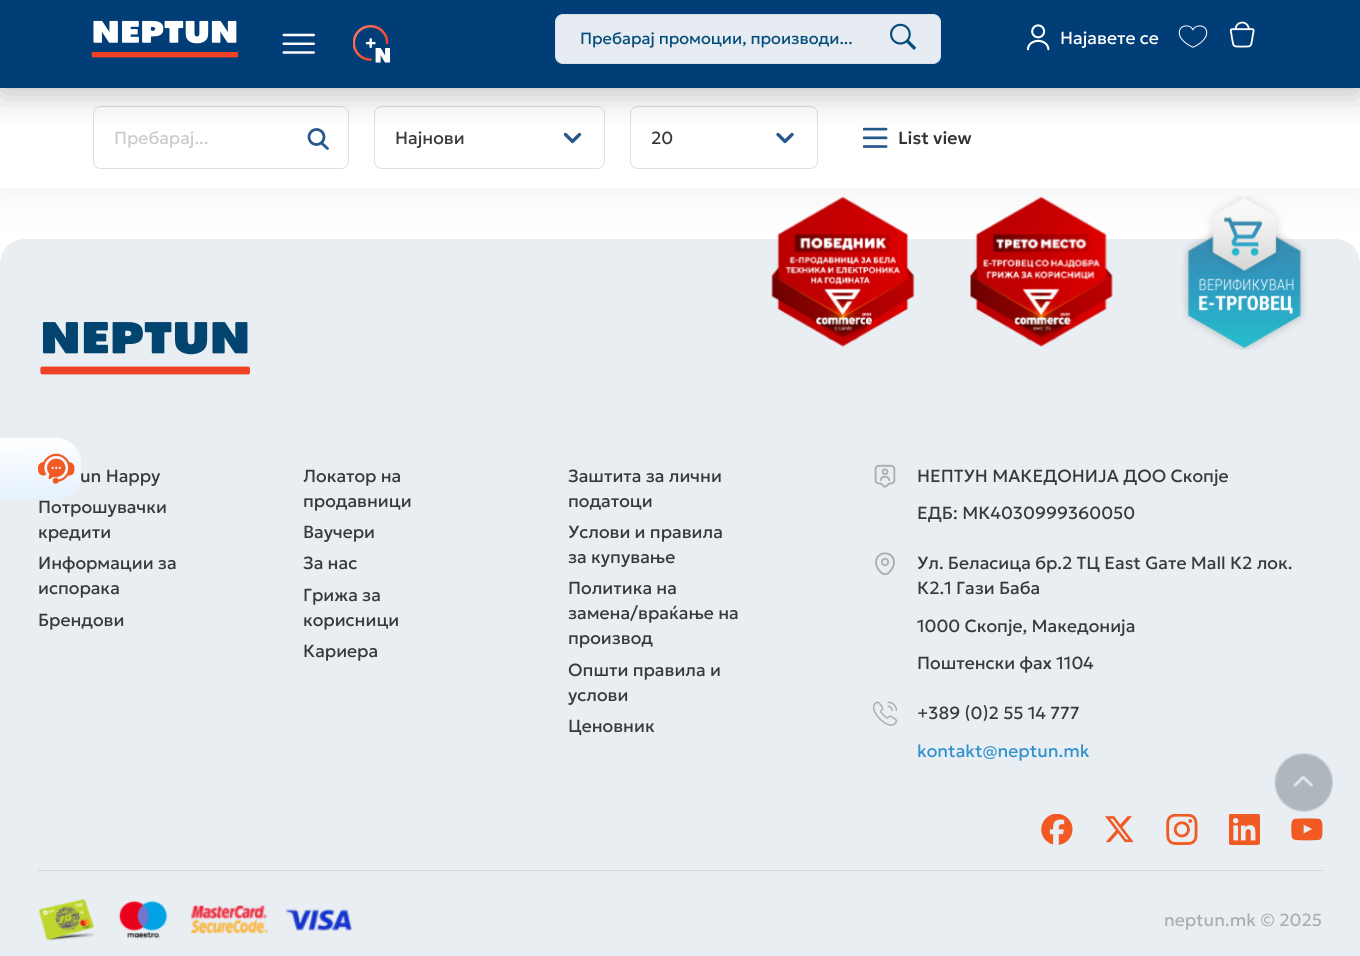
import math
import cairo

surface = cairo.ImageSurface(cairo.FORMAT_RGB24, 1360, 956)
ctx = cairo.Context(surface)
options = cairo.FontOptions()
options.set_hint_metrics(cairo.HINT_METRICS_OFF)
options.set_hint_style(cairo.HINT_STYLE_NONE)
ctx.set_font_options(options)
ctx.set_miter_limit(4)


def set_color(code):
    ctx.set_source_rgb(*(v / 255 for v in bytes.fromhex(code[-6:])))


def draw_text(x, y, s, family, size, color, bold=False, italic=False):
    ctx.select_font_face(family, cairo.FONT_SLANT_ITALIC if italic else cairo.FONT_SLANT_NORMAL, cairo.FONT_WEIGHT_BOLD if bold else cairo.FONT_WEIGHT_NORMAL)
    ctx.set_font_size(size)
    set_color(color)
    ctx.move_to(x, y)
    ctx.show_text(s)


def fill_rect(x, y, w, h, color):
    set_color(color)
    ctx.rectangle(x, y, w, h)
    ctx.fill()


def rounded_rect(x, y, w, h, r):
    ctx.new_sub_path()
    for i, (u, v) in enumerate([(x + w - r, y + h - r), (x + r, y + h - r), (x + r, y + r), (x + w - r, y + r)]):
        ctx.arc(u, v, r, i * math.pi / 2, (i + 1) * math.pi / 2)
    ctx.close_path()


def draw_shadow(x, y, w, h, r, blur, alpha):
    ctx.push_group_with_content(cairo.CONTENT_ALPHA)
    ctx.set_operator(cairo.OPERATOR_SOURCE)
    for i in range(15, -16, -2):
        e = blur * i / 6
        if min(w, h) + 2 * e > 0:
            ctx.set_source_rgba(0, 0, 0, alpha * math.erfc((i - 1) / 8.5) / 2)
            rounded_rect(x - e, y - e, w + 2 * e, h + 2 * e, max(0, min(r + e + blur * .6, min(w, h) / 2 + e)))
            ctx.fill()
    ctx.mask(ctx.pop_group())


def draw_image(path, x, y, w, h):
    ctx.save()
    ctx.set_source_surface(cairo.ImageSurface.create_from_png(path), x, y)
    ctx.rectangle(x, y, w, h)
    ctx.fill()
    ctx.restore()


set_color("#ffffff")
ctx.paint()
set_color("#e9eef3")
ctx.new_path()
ctx.move_to(25, 239)
ctx.line_to(1335, 239)
ctx.curve_to(1349, 239, 1360, 250, 1360, 264)
ctx.line_to(1360, 956)
ctx.line_to(0, 956)
ctx.line_to(0, 264)
ctx.curve_to(0, 250, 11, 239, 25, 239)
ctx.close_path()
ctx.fill()
draw_image("assets/img11.png", 771, 196, 144, 151)
draw_image("assets/img12.png", 970, 196, 143, 151)
draw_image("assets/img13.png", 1182, 196, 125, 154)
set_color("#000000")
draw_shadow(0, 93, 1360, 100, 0, 25, 0.06)
fill_rect(0, 88, 1360, 100, "#ffffff")
rounded_rect(93.5, 106.5, 255, 62, 7.5)
set_color("#d7e1ea")
ctx.set_line_width(1)
ctx.stroke()
ctx.arc(316.5, 137, 7.5, 0, 2 * math.pi)
set_color("#25598b")
ctx.set_line_width(2.8)
ctx.stroke()
ctx.new_path()
ctx.move_to(321.5, 143)
ctx.line_to(327.5, 148.5)
ctx.set_line_cap(cairo.LINE_CAP_ROUND)
ctx.set_line_join(cairo.LINE_JOIN_ROUND)
ctx.stroke()
rounded_rect(374.5, 106.5, 230, 62, 7.5)
set_color("#d7e1ea")
ctx.set_line_width(1)
ctx.set_line_cap(cairo.LINE_CAP_BUTT)
ctx.set_line_join(cairo.LINE_JOIN_MITER)
ctx.stroke()
ctx.new_path()
ctx.move_to(565.5, 134.5)
ctx.line_to(572.5, 141.5)
ctx.line_to(579.5, 134.5)
set_color("#25598b")
ctx.set_line_width(3.4)
ctx.set_line_cap(cairo.LINE_CAP_ROUND)
ctx.set_line_join(cairo.LINE_JOIN_ROUND)
ctx.stroke()
rounded_rect(630.5, 106.5, 187, 62, 7.5)
set_color("#d7e1ea")
ctx.set_line_width(1)
ctx.set_line_cap(cairo.LINE_CAP_BUTT)
ctx.set_line_join(cairo.LINE_JOIN_MITER)
ctx.stroke()
ctx.new_path()
ctx.move_to(778, 134.5)
ctx.line_to(785, 141.5)
ctx.line_to(792, 134.5)
set_color("#25598b")
ctx.set_line_width(3.4)
ctx.set_line_cap(cairo.LINE_CAP_ROUND)
ctx.set_line_join(cairo.LINE_JOIN_ROUND)
ctx.stroke()
draw_image("assets/img8.png", 863, 127, 25, 21)
set_color("#000000")
draw_shadow(0, -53, 1360, 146, 0, 17.5, 0.27)
fill_rect(0, 0, 1360, 88, "#013d77")
draw_image("assets/img1.png", 282, 33, 33, 21)
draw_image("assets/img2.png", 353, 25, 37, 38)
draw_image("assets/img3.png", 91, 20, 148, 38)
set_color("#e6ecf2")
rounded_rect(555.5, 14.5, 385, 49, 7.5)
ctx.fill_preserve()
set_color("#d7e1ea")
ctx.set_line_width(1)
ctx.set_line_cap(cairo.LINE_CAP_BUTT)
ctx.set_line_join(cairo.LINE_JOIN_MITER)
ctx.stroke()
draw_text(580, 44, "Пребарај промоции, производи...", "Geologica", 16.25, "#064d7c")
draw_image("assets/img4.png", 890, 23, 27, 27)
draw_image("assets/img5.png", 1026, 24, 24, 27)
draw_text(1060, 44, "Најавете се", "Geologica", 17.5, "#ffffff")
draw_image("assets/img6.png", 1178, 25, 30, 23)
draw_image("assets/img7.png", 1229, 21, 26, 27)
draw_text(114, 144, "Пребарај...", "Geologica", 17.5, "#cccccc")
draw_text(395, 144, "Најнови", "Geologica", 17.5, "#393939")
draw_text(651, 144, "20", "Geologica", 17.5, "#393939")
draw_text(898, 144, "List view", "Geologica Medium", 17.5, "#333333")
draw_text(80, 482, "un Happy", "Geologica", 17.5, "#393939")
gradient = cairo.LinearGradient(37, 438, 38, 500)
gradient.add_color_stop_rgba(0, 1, 1, 1, 1)
gradient.add_color_stop_rgba(1, 0.894, 0.945, 0.992, 1)
ctx.set_source(gradient)
ctx.new_path()
ctx.move_to(-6, 438)
ctx.line_to(56, 438)
ctx.curve_to(70, 438, 81, 449, 81, 463)
ctx.line_to(81, 475)
ctx.curve_to(81, 489, 70, 500, 56, 500)
ctx.line_to(-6, 500)
ctx.close_path()
ctx.fill()
draw_image("assets/img9.png", 38, 453, 37, 31)
draw_image("assets/img10.png", 40, 322, 210, 53)
draw_text(38, 513, "Потрошувачки", "Geologica", 17.5, "#393939")
draw_text(38, 538, "кредити", "Geologica", 17.5, "#393939")
draw_text(38, 569, "Информации за", "Geologica", 17.5, "#393939")
draw_text(38, 594, "испорака", "Geologica", 17.5, "#393939")
draw_text(38, 626, "Брендови", "Geologica", 17.5, "#393939")
draw_text(303, 482, "Локатор на", "Geologica", 17.5, "#393939")
draw_text(303, 507, "продавници", "Geologica", 17.5, "#393939")
draw_text(303, 538, "Ваучери", "Geologica", 17.5, "#393939")
draw_text(303, 569, "За нас", "Geologica", 17.5, "#393939")
draw_text(303, 601, "Грижа за", "Geologica", 17.5, "#393939")
draw_text(303, 626, "корисници", "Geologica", 17.5, "#393939")
draw_text(303, 657, "Кариера", "Geologica", 17.5, "#393939")
draw_text(568, 482, "Заштита за лични", "Geologica", 17.5, "#393939")
draw_text(568, 507, "податоци", "Geologica", 17.5, "#393939")
draw_text(568, 538, "Услови и правила", "Geologica", 17.5, "#393939")
draw_text(568, 563, "за купување", "Geologica", 17.5, "#393939")
draw_text(568, 594, "Политика на", "Geologica", 17.5, "#393939")
draw_text(568, 619, "замена/враќање на", "Geologica", 17.5, "#393939")
draw_text(568, 644, "производ", "Geologica", 17.5, "#393939")
draw_text(568, 676, "Општи правила и", "Geologica", 17.5, "#393939")
draw_text(568, 701, "услови", "Geologica", 17.5, "#393939")
draw_text(568, 732, "Ценовник", "Geologica", 17.5, "#393939")
draw_image("assets/img14.png", 874, 464, 22, 24)
draw_text(917, 482, "НЕПТУН МАКЕДОНИЈА ДОО Скопје", "Geologica", 17.5, "#393939")
draw_text(917, 519, "ЕДБ: МК4030999360050", "Geologica", 17.5, "#393939")
draw_image("assets/img15.png", 875, 552, 20, 23)
draw_text(917, 569, "Ул. Беласица бр.2 ТЦ Еast Gате Mall К2 лок.", "Geologica", 17.5, "#393939")
draw_text(917, 594, "К2.1 Гази Баба", "Geologica", 17.5, "#393939")
draw_text(917, 632, "1000 Скопје, Македонија", "Geologica", 17.5, "#393939")
draw_text(917, 669, "Поштенски фах 1104", "Geologica", 17.5, "#393939")
draw_image("assets/img16.png", 873, 701, 25, 25)
draw_text(917, 719, "+389 (0)2 55 14 777", "Geologica", 17.5, "#393939")
draw_text(917, 757, "kontakt@neptun.mk", "Geologica", 17.5, "#3492ce")
draw_image("assets/img17.png", 1041, 814, 32, 31)
draw_image("assets/img18.png", 1105, 816, 29, 27)
draw_image("assets/img19.png", 1166, 814, 32, 31)
draw_image("assets/img20.png", 1229, 814, 31, 31)
draw_image("assets/img21.png", 1291, 818, 32, 23)
fill_rect(38, 870, 1285, 1, "#d3d6d9")
draw_image("assets/img22.png", 38, 898, 57, 43)
draw_image("assets/img23.png", 118, 900, 50, 39)
draw_image("assets/img24.png", 191, 905, 77, 29)
draw_image("assets/img25.png", 286, 909, 66, 22)
draw_text(1164, 926, "neptun.mk © 2025", "Geologica", 17.5, "#aeaeae")
draw_image("assets/img26.png", 1274, 753, 59, 59)
surface.write_to_png("output.png")
